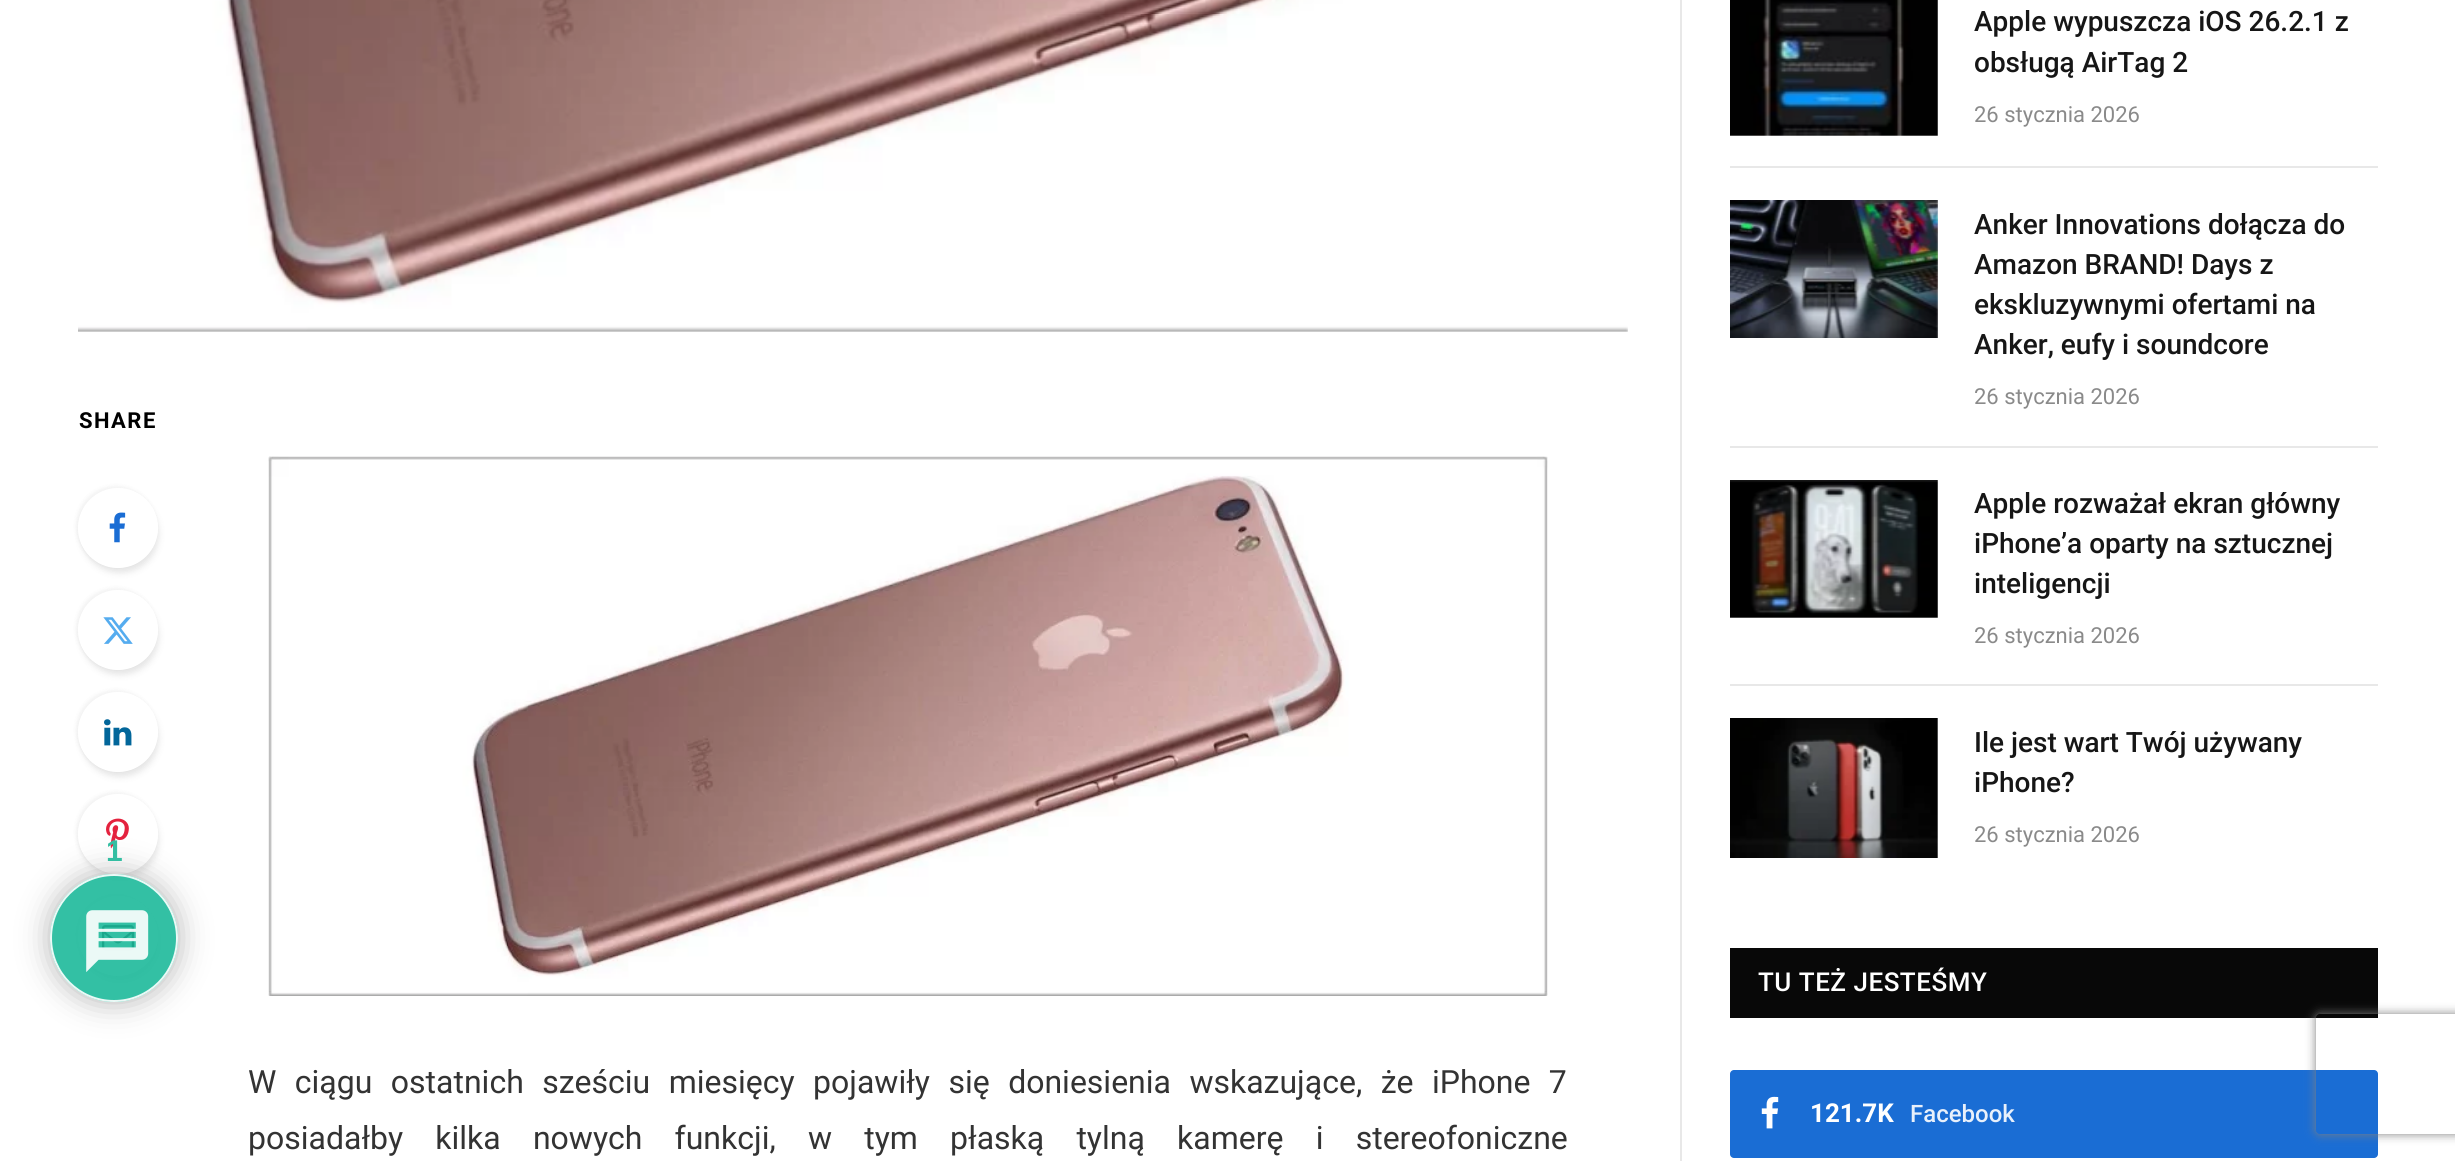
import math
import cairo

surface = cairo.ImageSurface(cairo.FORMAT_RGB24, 2455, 1161)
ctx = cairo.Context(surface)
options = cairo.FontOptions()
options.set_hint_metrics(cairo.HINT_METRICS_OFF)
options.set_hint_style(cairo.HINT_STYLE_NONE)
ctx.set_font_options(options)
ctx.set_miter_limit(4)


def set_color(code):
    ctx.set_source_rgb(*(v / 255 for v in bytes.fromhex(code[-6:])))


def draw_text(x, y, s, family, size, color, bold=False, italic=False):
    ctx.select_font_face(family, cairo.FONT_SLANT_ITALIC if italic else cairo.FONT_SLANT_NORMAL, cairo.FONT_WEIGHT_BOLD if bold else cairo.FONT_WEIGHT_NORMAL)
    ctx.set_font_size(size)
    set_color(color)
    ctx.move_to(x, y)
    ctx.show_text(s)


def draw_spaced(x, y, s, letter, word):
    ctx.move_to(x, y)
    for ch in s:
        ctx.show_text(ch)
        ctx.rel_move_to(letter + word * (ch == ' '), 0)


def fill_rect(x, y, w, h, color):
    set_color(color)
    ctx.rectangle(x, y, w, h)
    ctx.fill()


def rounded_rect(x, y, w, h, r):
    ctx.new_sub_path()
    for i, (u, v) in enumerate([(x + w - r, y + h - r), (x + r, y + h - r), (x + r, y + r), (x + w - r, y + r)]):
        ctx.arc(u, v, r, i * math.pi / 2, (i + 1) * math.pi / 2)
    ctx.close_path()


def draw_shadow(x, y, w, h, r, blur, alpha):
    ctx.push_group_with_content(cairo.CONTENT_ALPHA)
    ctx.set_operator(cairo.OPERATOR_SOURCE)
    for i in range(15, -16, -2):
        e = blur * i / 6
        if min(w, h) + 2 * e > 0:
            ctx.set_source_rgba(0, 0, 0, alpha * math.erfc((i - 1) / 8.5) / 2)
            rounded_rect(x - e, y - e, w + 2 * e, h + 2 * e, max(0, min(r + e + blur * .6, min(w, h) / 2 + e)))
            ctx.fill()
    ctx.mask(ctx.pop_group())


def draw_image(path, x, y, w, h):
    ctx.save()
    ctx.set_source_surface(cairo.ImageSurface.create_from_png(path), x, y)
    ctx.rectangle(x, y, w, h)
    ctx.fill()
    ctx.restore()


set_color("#ffffff")
ctx.paint()
draw_image("assets/img1.png", 78, 0, 1550, 332)
ctx.select_font_face("Roboto", cairo.FONT_SLANT_NORMAL, cairo.FONT_WEIGHT_BOLD)
ctx.set_font_size(22)
set_color("#000000")
draw_spaced(79, 428, "SHARE", 1.5, 0)
ctx.save()
ctx.set_fill_rule(cairo.FILL_RULE_EVEN_ODD)
ctx.new_path()
ctx.move_to(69, 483)
ctx.line_to(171, 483)
ctx.line_to(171, 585)
ctx.line_to(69, 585)
ctx.close_path()
ctx.move_to(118, 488)
ctx.curve_to(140, 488, 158, 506, 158, 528)
ctx.curve_to(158, 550, 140, 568, 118, 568)
ctx.curve_to(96, 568, 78, 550, 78, 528)
ctx.curve_to(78, 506, 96, 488, 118, 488)
ctx.close_path()
ctx.clip()
set_color("#000000")
draw_shadow(82, 496, 76, 76, 38, 4, 0.12)
ctx.restore()
ctx.save()
ctx.set_fill_rule(cairo.FILL_RULE_EVEN_ODD)
ctx.new_path()
ctx.move_to(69, 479)
ctx.line_to(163, 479)
ctx.line_to(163, 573)
ctx.line_to(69, 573)
ctx.close_path()
ctx.move_to(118, 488)
ctx.curve_to(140, 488, 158, 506, 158, 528)
ctx.curve_to(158, 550, 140, 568, 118, 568)
ctx.curve_to(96, 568, 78, 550, 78, 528)
ctx.curve_to(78, 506, 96, 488, 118, 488)
ctx.close_path()
ctx.clip()
set_color("#000000")
draw_shadow(76, 486, 80, 80, 40, 2, 0.05)
ctx.restore()
draw_image("assets/img2.png", 109, 512, 17, 31)
ctx.save()
ctx.set_fill_rule(cairo.FILL_RULE_EVEN_ODD)
ctx.new_path()
ctx.move_to(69, 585)
ctx.line_to(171, 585)
ctx.line_to(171, 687)
ctx.line_to(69, 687)
ctx.close_path()
ctx.move_to(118, 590)
ctx.curve_to(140, 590, 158, 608, 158, 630)
ctx.curve_to(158, 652, 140, 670, 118, 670)
ctx.curve_to(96, 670, 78, 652, 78, 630)
ctx.curve_to(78, 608, 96, 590, 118, 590)
ctx.close_path()
ctx.clip()
set_color("#000000")
draw_shadow(82, 598, 76, 76, 38, 4, 0.12)
ctx.restore()
ctx.save()
ctx.set_fill_rule(cairo.FILL_RULE_EVEN_ODD)
ctx.new_path()
ctx.move_to(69, 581)
ctx.line_to(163, 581)
ctx.line_to(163, 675)
ctx.line_to(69, 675)
ctx.close_path()
ctx.move_to(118, 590)
ctx.curve_to(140, 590, 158, 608, 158, 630)
ctx.curve_to(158, 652, 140, 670, 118, 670)
ctx.curve_to(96, 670, 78, 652, 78, 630)
ctx.curve_to(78, 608, 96, 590, 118, 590)
ctx.close_path()
ctx.clip()
set_color("#000000")
draw_shadow(76, 588, 80, 80, 40, 2, 0.05)
ctx.restore()
draw_image("assets/img3.png", 103, 617, 30, 27)
ctx.save()
ctx.set_fill_rule(cairo.FILL_RULE_EVEN_ODD)
ctx.new_path()
ctx.move_to(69, 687)
ctx.line_to(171, 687)
ctx.line_to(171, 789)
ctx.line_to(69, 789)
ctx.close_path()
ctx.move_to(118, 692)
ctx.curve_to(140, 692, 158, 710, 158, 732)
ctx.curve_to(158, 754, 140, 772, 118, 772)
ctx.curve_to(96, 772, 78, 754, 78, 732)
ctx.curve_to(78, 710, 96, 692, 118, 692)
ctx.close_path()
ctx.clip()
set_color("#000000")
draw_shadow(82, 700, 76, 76, 38, 4, 0.12)
ctx.restore()
ctx.save()
ctx.set_fill_rule(cairo.FILL_RULE_EVEN_ODD)
ctx.new_path()
ctx.move_to(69, 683)
ctx.line_to(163, 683)
ctx.line_to(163, 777)
ctx.line_to(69, 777)
ctx.close_path()
ctx.move_to(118, 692)
ctx.curve_to(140, 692, 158, 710, 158, 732)
ctx.curve_to(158, 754, 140, 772, 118, 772)
ctx.curve_to(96, 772, 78, 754, 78, 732)
ctx.curve_to(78, 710, 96, 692, 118, 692)
ctx.close_path()
ctx.clip()
set_color("#000000")
draw_shadow(76, 690, 80, 80, 40, 2, 0.05)
ctx.restore()
draw_image("assets/img4.png", 104, 719, 28, 27)
ctx.save()
ctx.set_fill_rule(cairo.FILL_RULE_EVEN_ODD)
ctx.new_path()
ctx.move_to(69, 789)
ctx.line_to(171, 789)
ctx.line_to(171, 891)
ctx.line_to(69, 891)
ctx.close_path()
ctx.move_to(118, 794)
ctx.curve_to(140, 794, 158, 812, 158, 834)
ctx.curve_to(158, 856, 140, 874, 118, 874)
ctx.curve_to(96, 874, 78, 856, 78, 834)
ctx.curve_to(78, 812, 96, 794, 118, 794)
ctx.close_path()
ctx.clip()
set_color("#000000")
draw_shadow(82, 802, 76, 76, 38, 4, 0.12)
ctx.restore()
ctx.save()
ctx.set_fill_rule(cairo.FILL_RULE_EVEN_ODD)
ctx.new_path()
ctx.move_to(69, 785)
ctx.line_to(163, 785)
ctx.line_to(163, 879)
ctx.line_to(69, 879)
ctx.close_path()
ctx.move_to(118, 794)
ctx.curve_to(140, 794, 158, 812, 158, 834)
ctx.curve_to(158, 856, 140, 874, 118, 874)
ctx.curve_to(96, 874, 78, 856, 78, 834)
ctx.curve_to(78, 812, 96, 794, 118, 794)
ctx.close_path()
ctx.clip()
set_color("#000000")
draw_shadow(76, 792, 80, 80, 40, 2, 0.05)
ctx.restore()
draw_image("assets/img5.png", 106, 818, 23, 31)
ctx.save()
ctx.set_fill_rule(cairo.FILL_RULE_EVEN_ODD)
ctx.new_path()
ctx.move_to(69, 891)
ctx.line_to(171, 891)
ctx.line_to(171, 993)
ctx.line_to(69, 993)
ctx.close_path()
ctx.move_to(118, 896)
ctx.curve_to(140, 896, 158, 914, 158, 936)
ctx.curve_to(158, 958, 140, 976, 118, 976)
ctx.curve_to(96, 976, 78, 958, 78, 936)
ctx.curve_to(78, 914, 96, 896, 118, 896)
ctx.close_path()
ctx.clip()
set_color("#000000")
draw_shadow(82, 904, 76, 76, 38, 4, 0.12)
ctx.restore()
ctx.save()
ctx.set_fill_rule(cairo.FILL_RULE_EVEN_ODD)
ctx.new_path()
ctx.move_to(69, 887)
ctx.line_to(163, 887)
ctx.line_to(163, 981)
ctx.line_to(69, 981)
ctx.close_path()
ctx.move_to(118, 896)
ctx.curve_to(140, 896, 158, 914, 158, 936)
ctx.curve_to(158, 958, 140, 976, 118, 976)
ctx.curve_to(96, 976, 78, 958, 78, 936)
ctx.curve_to(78, 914, 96, 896, 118, 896)
ctx.close_path()
ctx.clip()
set_color("#000000")
draw_shadow(76, 894, 80, 80, 40, 2, 0.05)
ctx.restore()
draw_image("assets/img6.png", 102, 925, 32, 26)
draw_image("assets/img7.png", 268, 456, 1280, 540)
ctx.select_font_face("Roboto")
ctx.set_font_size(32)
set_color("#333333")
draw_spaced(248, 1093, "W ciągu ostatnich sześciu miesięcy pojawiły się doniesienia wskazujące, że iPhone 7", 0, 10.5)
draw_spaced(248, 1149, "posiadałby kilka nowych funkcji, w tym płaską tylną kamerę i stereofoniczne", 0, 24.25)
fill_rect(1680, 0, 2, 1161, "#e8e8e8")
draw_image("assets/img8.png", 1730, 0, 208, 136)
draw_text(1974, 31, "Apple wypuszcza iOS 26.2.1 z", "Roboto Medium", 28, "#161616")
draw_text(1974, 72, "obsługą AirTag 2", "Roboto Medium", 28, "#161616")
draw_text(1974, 122, "26 stycznia 2026", "Roboto", 22, "#8a8a8a")
fill_rect(1730, 166, 648, 2, "#e8e8e8")
draw_image("assets/img9.png", 1730, 200, 208, 138)
draw_text(1974, 234, "Anker Innovations dołącza do", "Roboto Medium", 28, "#161616")
draw_text(1974, 274, "Amazon BRAND! Days z", "Roboto Medium", 28, "#161616")
draw_text(1974, 314, "ekskluzywnymi ofertami na", "Roboto Medium", 28, "#161616")
draw_text(1974, 354, "Anker, eufy i soundcore", "Roboto Medium", 28, "#161616")
draw_text(1974, 404, "26 stycznia 2026", "Roboto", 22, "#8a8a8a")
fill_rect(1730, 446, 648, 2, "#e8e8e8")
draw_image("assets/img10.png", 1730, 480, 208, 138)
draw_text(1974, 513, "Apple rozważał ekran główny", "Roboto Medium", 28, "#161616")
draw_text(1974, 553, "iPhone’a oparty na sztucznej", "Roboto Medium", 28, "#161616")
draw_text(1974, 593, "inteligencji", "Roboto Medium", 28, "#161616")
draw_text(1974, 643, "26 stycznia 2026", "Roboto", 22, "#8a8a8a")
fill_rect(1730, 684, 648, 2, "#e8e8e8")
draw_image("assets/img11.png", 1730, 718, 208, 140)
draw_text(1974, 752, "Ile jest wart Twój używany", "Roboto Medium", 28, "#161616")
draw_text(1974, 792, "iPhone?", "Roboto Medium", 28, "#161616")
draw_text(1974, 842, "26 stycznia 2026", "Roboto", 22, "#8a8a8a")
fill_rect(1730, 948, 648, 70, "#080808")
ctx.select_font_face("Roboto Medium")
ctx.set_font_size(26)
set_color("#ffffff")
draw_spaced(1758, 991, "TU TEŻ JESTEŚMY", 0.5, 0)
set_color("#1a6dd4")
rounded_rect(1730, 1070, 648, 88, 4)
ctx.fill()
draw_image("assets/img12.png", 1761, 1096, 18, 33)
draw_text(1810, 1122, "121.7K", "Roboto", 26, "#ffffff", bold=True)
draw_text(1910, 1122, "Facebook", "Roboto Medium", 24, "#e8f0fb")
ctx.save()
ctx.set_fill_rule(cairo.FILL_RULE_EVEN_ODD)
ctx.new_path()
ctx.move_to(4, 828)
ctx.line_to(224, 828)
ctx.line_to(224, 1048)
ctx.line_to(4, 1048)
ctx.close_path()
ctx.move_to(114, 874)
ctx.curve_to(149.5, 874, 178, 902.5, 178, 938)
ctx.curve_to(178, 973.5, 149.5, 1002, 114, 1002)
ctx.curve_to(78.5, 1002, 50, 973.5, 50, 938)
ctx.curve_to(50, 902.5, 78.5, 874, 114, 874)
ctx.close_path()
ctx.clip()
set_color("#aaaaaa")
draw_shadow(50, 874, 128, 128, 64, 15, 0.9)
ctx.restore()
ctx.set_source_rgba(0.114, 0.725, 0.604, 0.9)
ctx.arc(114, 938, 64, 0, 2 * math.pi)
ctx.fill()
ctx.arc(114, 938, 63, 0, 2 * math.pi)
ctx.set_source_rgba(1, 1, 1, 0.9)
ctx.stroke()
draw_image("assets/img13.png", 86, 910, 63, 62)
draw_text(106, 861, "1", "Liberation Sans", 30, "#33bea2", bold=True)
ctx.save()
ctx.set_fill_rule(cairo.FILL_RULE_EVEN_ODD)
ctx.new_path()
ctx.move_to(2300, 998)
ctx.line_to(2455, 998)
ctx.line_to(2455, 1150)
ctx.line_to(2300, 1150)
ctx.close_path()
ctx.move_to(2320, 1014)
ctx.line_to(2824, 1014)
ctx.curve_to(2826, 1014, 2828, 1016, 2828, 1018)
ctx.line_to(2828, 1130)
ctx.curve_to(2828, 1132, 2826, 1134, 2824, 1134)
ctx.line_to(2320, 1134)
ctx.curve_to(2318, 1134, 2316, 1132, 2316, 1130)
ctx.line_to(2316, 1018)
ctx.curve_to(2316, 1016, 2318, 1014, 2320, 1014)
ctx.close_path()
ctx.clip()
set_color("#808080")
draw_shadow(2316, 1014, 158, 120, 4, 5, 1)
ctx.restore()
surface.write_to_png("output.png")
